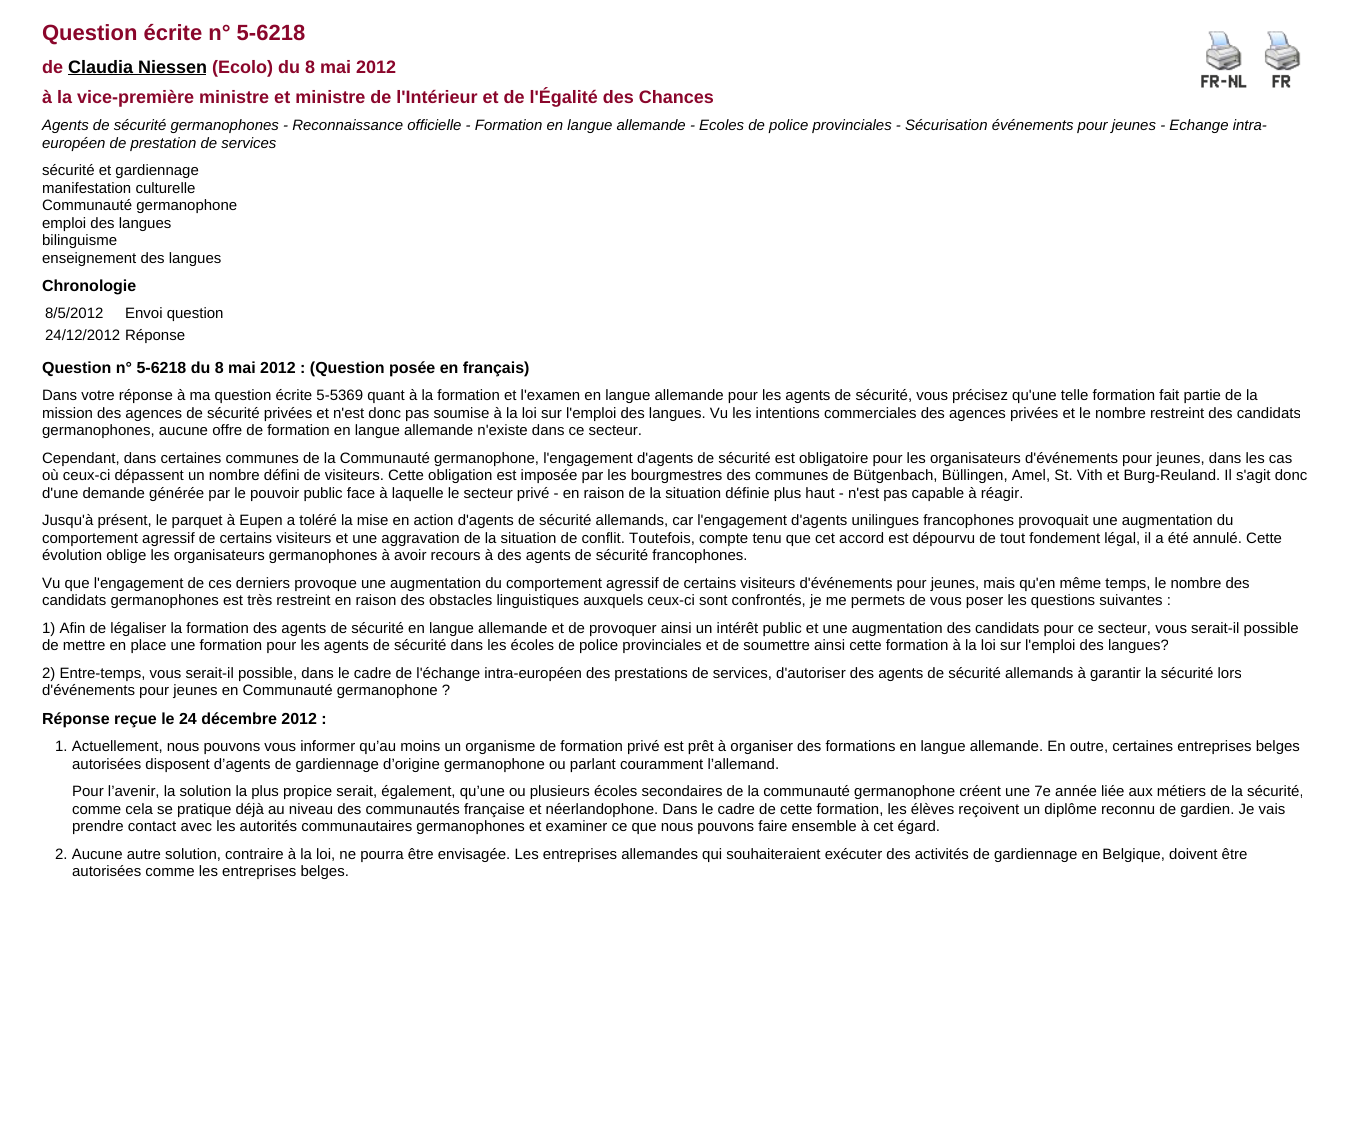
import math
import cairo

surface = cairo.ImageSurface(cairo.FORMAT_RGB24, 1353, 1147)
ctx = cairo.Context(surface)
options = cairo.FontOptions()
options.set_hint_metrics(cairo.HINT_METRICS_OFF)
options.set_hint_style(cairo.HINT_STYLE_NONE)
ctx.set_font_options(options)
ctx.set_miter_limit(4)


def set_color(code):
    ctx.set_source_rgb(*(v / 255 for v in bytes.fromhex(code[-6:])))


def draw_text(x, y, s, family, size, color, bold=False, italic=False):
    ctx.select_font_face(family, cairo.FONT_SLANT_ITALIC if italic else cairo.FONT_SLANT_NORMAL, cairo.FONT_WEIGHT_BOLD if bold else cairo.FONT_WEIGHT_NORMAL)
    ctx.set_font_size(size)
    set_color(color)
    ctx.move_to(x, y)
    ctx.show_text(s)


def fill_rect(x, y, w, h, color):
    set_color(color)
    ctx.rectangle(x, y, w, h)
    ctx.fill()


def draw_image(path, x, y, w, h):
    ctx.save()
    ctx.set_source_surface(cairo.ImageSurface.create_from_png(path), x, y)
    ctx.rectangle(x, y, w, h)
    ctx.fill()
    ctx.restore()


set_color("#ffffff")
ctx.paint()
draw_text(42, 40, "Question écrite n° 5-6218", "Liberation Sans", 22, "#8a062b", bold=True)
draw_image("assets/img1.png", 1201, 31, 46, 57)
draw_image("assets/img2.png", 1264, 31, 37, 57)
draw_text(42, 73, "de", "Liberation Sans", 18, "#8a062b", bold=True)
draw_text(68, 73, "Claudia Niessen", "Liberation Sans", 18, "#000000", bold=True)
fill_rect(68, 74, 138, 1, "#000000")
draw_text(212, 73, "(Ecolo) du 8 mai 2012", "Liberation Sans", 18, "#8a062b", bold=True)
draw_text(42, 103, "à la vice-première ministre et ministre de l'Intérieur et de l'Égalité des Chances", "Liberation Sans", 18, "#8a062b", bold=True)
draw_text(42, 130, "Agents de sécurité germanophones - Reconnaissance officielle - Formation en langue allemande - Ecoles de police provinciales - Sécurisation événements pour jeunes - Echange intra-", "Liberation Sans", 15, "#000000", italic=True)
draw_text(42, 148, "européen de prestation de services", "Liberation Sans", 15, "#000000", italic=True)
draw_text(42, 175, "sécurité et gardiennage", "Liberation Sans", 15, "#000000")
draw_text(42, 193, "manifestation culturelle", "Liberation Sans", 15, "#000000")
draw_text(42, 210, "Communauté germanophone", "Liberation Sans", 15, "#000000")
draw_text(42, 228, "emploi des langues", "Liberation Sans", 15, "#000000")
draw_text(42, 245, "bilinguisme", "Liberation Sans", 15, "#000000")
draw_text(42, 263, "enseignement des langues", "Liberation Sans", 15, "#000000")
draw_text(42, 291, "Chronologie", "Liberation Sans", 16, "#000000", bold=True)
draw_text(45, 318, "8/5/2012", "Liberation Sans", 15, "#000000")
draw_text(125, 318, "Envoi question", "Liberation Sans", 15, "#000000")
draw_text(45, 340, "24/12/2012", "Liberation Sans", 15, "#000000")
draw_text(125, 340, "Réponse", "Liberation Sans", 15, "#000000")
draw_text(42, 373, "Question n° 5-6218 du 8 mai 2012 : (Question posée en français)", "Liberation Sans", 16, "#000000", bold=True)
draw_text(42, 400, "Dans votre réponse à ma question écrite 5-5369 quant à la formation et l'examen en langue allemande pour les agents de sécurité, vous précisez qu'une telle formation fait partie de la", "Liberation Sans", 15, "#000000")
draw_text(42, 418, "mission des agences de sécurité privées et n'est donc pas soumise à la loi sur l'emploi des langues. Vu les intentions commerciales des agences privées et le nombre restreint des candidats", "Liberation Sans", 15, "#000000")
draw_text(42, 435, "germanophones, aucune offre de formation en langue allemande n'existe dans ce secteur.", "Liberation Sans", 15, "#000000")
draw_text(42, 463, "Cependant, dans certaines communes de la Communauté germanophone, l'engagement d'agents de sécurité est obligatoire pour les organisateurs d'événements pour jeunes, dans les cas", "Liberation Sans", 15, "#000000")
draw_text(42, 480, "où ceux-ci dépassent un nombre défini de visiteurs. Cette obligation est imposée par les bourgmestres des communes de Bütgenbach, Büllingen, Amel, St. Vith et Burg-Reuland. Il s'agit donc", "Liberation Sans", 15, "#000000")
draw_text(42, 498, "d'une demande générée par le pouvoir public face à laquelle le secteur privé - en raison de la situation définie plus haut - n'est pas capable à réagir.", "Liberation Sans", 15, "#000000")
draw_text(42, 525, "Jusqu'à présent, le parquet à Eupen a toléré la mise en action d'agents de sécurité allemands, car l'engagement d'agents unilingues francophones provoquait une augmentation du", "Liberation Sans", 15, "#000000")
draw_text(42, 543, "comportement agressif de certains visiteurs et une aggravation de la situation de conflit. Toutefois, compte tenu que cet accord est dépourvu de tout fondement légal, il a été annulé. Cette", "Liberation Sans", 15, "#000000")
draw_text(42, 560, "évolution oblige les organisateurs germanophones à avoir recours à des agents de sécurité francophones.", "Liberation Sans", 15, "#000000")
draw_text(42, 588, "Vu que l'engagement de ces derniers provoque une augmentation du comportement agressif de certains visiteurs d'événements pour jeunes, mais qu'en même temps, le nombre des", "Liberation Sans", 15, "#000000")
draw_text(42, 605, "candidats germanophones est très restreint en raison des obstacles linguistiques auxquels ceux-ci sont confrontés, je me permets de vous poser les questions suivantes :", "Liberation Sans", 15, "#000000")
draw_text(42, 633, "1) Afin de légaliser la formation des agents de sécurité en langue allemande et de provoquer ainsi un intérêt public et une augmentation des candidats pour ce secteur, vous serait-il possible", "Liberation Sans", 15, "#000000")
draw_text(42, 650, "de mettre en place une formation pour les agents de sécurité dans les écoles de police provinciales et de soumettre ainsi cette formation à la loi sur l'emploi des langues?", "Liberation Sans", 15, "#000000")
draw_text(42, 678, "2) Entre-temps, vous serait-il possible, dans le cadre de l'échange intra-européen des prestations de services, d'autoriser des agents de sécurité allemands à garantir la sécurité lors", "Liberation Sans", 15, "#000000")
draw_text(42, 695, "d'événements pour jeunes en Communauté germanophone ?", "Liberation Sans", 15, "#000000")
draw_text(42, 724, "Réponse reçue le 24 décembre 2012 :", "Liberation Sans", 16, "#000000", bold=True)
draw_text(55, 751, "1. Actuellement, nous pouvons vous informer qu’au moins un organisme de formation privé est prêt à organiser des formations en langue allemande. En outre, certaines entreprises belges", "Liberation Sans", 15, "#000000")
draw_text(72, 769, "autorisées disposent d’agents de gardiennage d’origine germanophone ou parlant couramment l’allemand.", "Liberation Sans", 15, "#000000")
draw_text(72, 796, "Pour l’avenir, la solution la plus propice serait, également, qu’une ou plusieurs écoles secondaires de la communauté germanophone créent une 7e année liée aux métiers de la sécurité,", "Liberation Sans", 15, "#000000")
draw_text(72, 814, "comme cela se pratique déjà au niveau des communautés française et néerlandophone. Dans le cadre de cette formation, les élèves reçoivent un diplôme reconnu de gardien. Je vais", "Liberation Sans", 15, "#000000")
draw_text(72, 831, "prendre contact avec les autorités communautaires germanophones et examiner ce que nous pouvons faire ensemble à cet égard.", "Liberation Sans", 15, "#000000")
draw_text(55, 859, "2. Aucune autre solution, contraire à la loi, ne pourra être envisagée. Les entreprises allemandes qui souhaiteraient exécuter des activités de gardiennage en Belgique, doivent être", "Liberation Sans", 15, "#000000")
draw_text(72, 876, "autorisées comme les entreprises belges.", "Liberation Sans", 15, "#000000")
surface.write_to_png("output.png")
